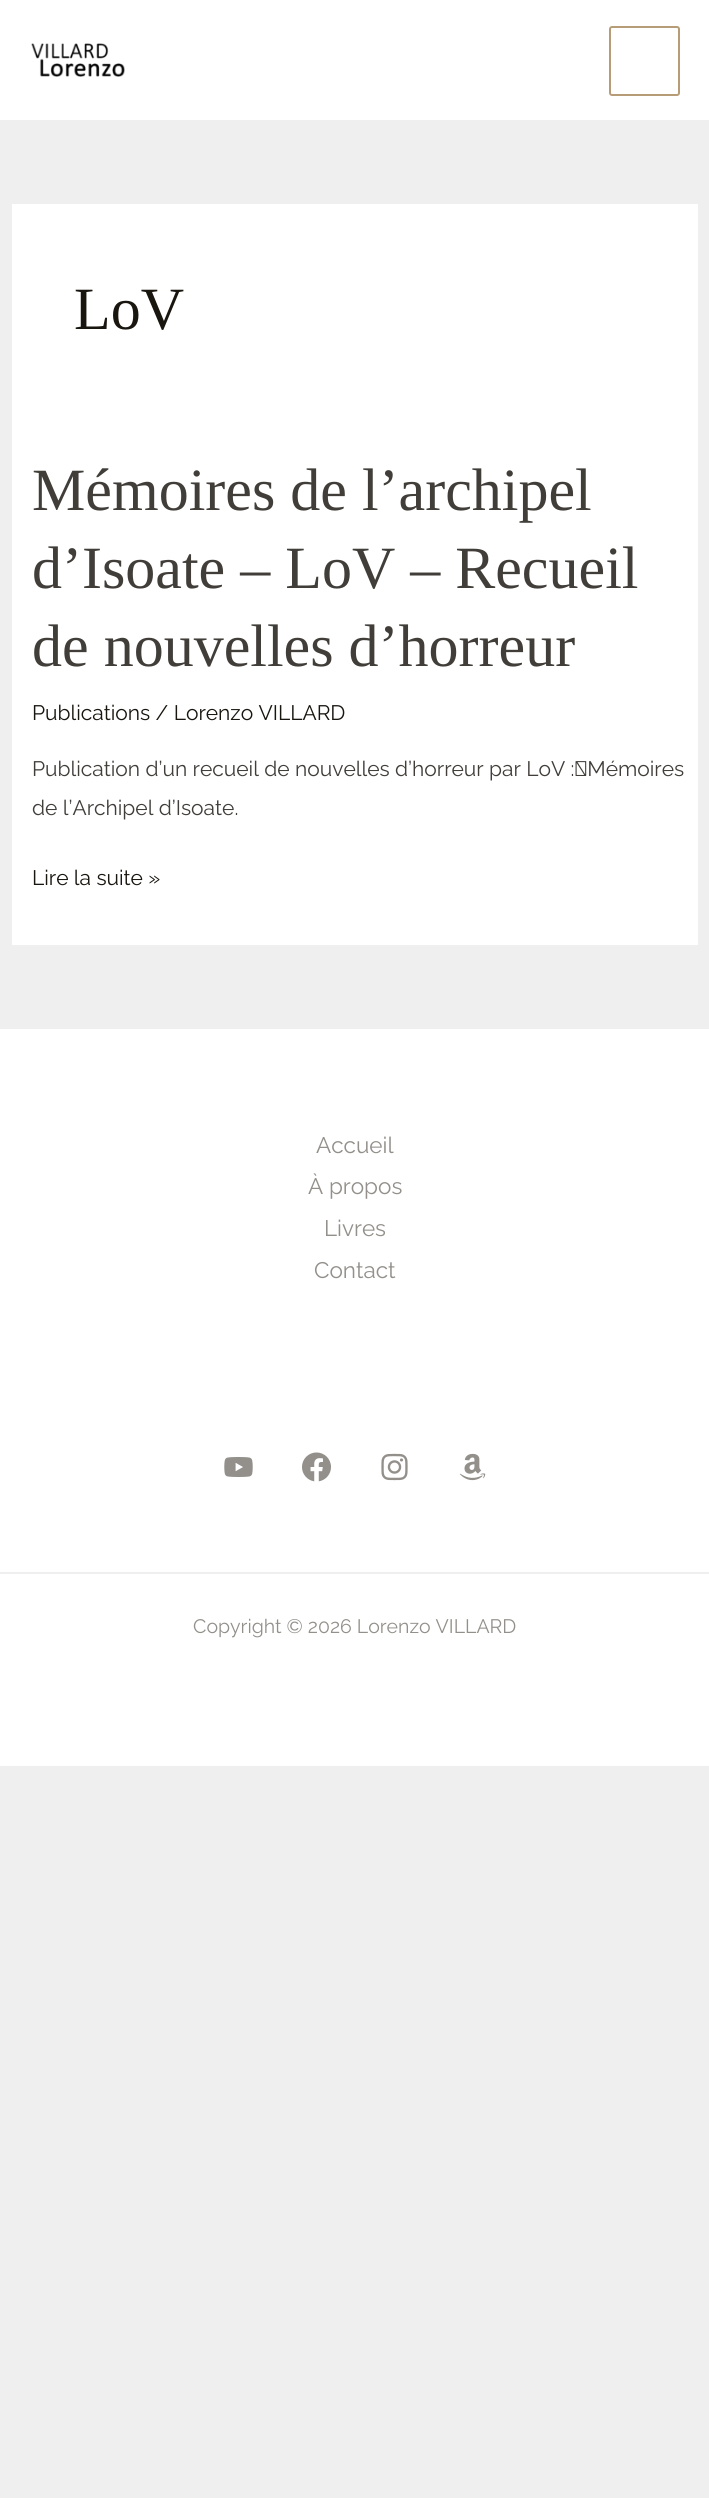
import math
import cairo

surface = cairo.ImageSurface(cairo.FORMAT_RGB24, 709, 2498)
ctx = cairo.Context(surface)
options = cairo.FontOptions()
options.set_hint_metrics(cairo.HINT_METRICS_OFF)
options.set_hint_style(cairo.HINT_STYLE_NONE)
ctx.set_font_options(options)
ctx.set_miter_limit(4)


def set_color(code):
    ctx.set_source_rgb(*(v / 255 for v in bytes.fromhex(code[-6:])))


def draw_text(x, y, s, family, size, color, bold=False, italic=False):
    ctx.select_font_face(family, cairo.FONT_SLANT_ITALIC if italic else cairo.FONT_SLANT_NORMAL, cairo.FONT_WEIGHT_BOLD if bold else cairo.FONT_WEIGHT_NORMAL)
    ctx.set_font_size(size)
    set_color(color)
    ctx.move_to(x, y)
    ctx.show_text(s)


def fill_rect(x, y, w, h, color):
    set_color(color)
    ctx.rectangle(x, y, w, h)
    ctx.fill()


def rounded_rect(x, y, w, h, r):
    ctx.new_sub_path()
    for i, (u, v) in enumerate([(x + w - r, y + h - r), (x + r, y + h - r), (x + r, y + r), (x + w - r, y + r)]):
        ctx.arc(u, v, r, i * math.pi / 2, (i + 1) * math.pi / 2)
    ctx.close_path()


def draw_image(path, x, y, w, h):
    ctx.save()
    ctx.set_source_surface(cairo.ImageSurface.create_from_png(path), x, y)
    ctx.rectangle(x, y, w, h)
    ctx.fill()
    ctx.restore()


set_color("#efefef")
ctx.paint()
fill_rect(0, 0, 709, 120, "#ffffff")
draw_image("assets/img1.png", 31, 43, 94, 34)
rounded_rect(610, 27, 69, 68, 2)
set_color("#b69d78")
ctx.stroke()
fill_rect(12, 204, 686, 741, "#ffffff")
draw_text(74, 329, "LoV", "Liberation Serif", 60, "#19150f")
draw_text(32, 510, "Mémoires de l’archipel", "Liberation Serif", 60, "#413e3a")
draw_text(32, 588, "d’Isoate – LoV – Recueil", "Liberation Serif", 60, "#413e3a")
draw_text(32, 666, "de nouvelles d’horreur", "Liberation Serif", 60, "#413e3a")
draw_text(32, 720, "Publications / Lorenzo VILLARD", "Raleway", 21, "#19150f")
draw_text(32, 776, "Publication d’un recueil de nouvelles d’horreur par LoV : Mémoires", "Raleway", 21, "#413e3a")
draw_text(32, 815, "de l’Archipel d’Isoate.", "Raleway", 21, "#413e3a")
draw_text(32, 885, "Lire la suite »", "Raleway", 21, "#19150f")
fill_rect(0, 1029, 709, 737, "#ffffff")
draw_text(316, 1153, "Accueil", "Raleway", 22.5, "#93908b")
draw_text(308, 1194, "À propos", "Raleway", 22.5, "#93908b")
draw_text(324, 1236, "Livres", "Raleway", 22.5, "#93908b")
draw_text(314, 1278, "Contact", "Raleway", 22.5, "#93908b")
draw_image("assets/img2.png", 224, 1457, 29, 20)
draw_image("assets/img3.png", 302, 1452, 29, 30)
draw_image("assets/img4.png", 381, 1453, 27, 28)
draw_image("assets/img5.png", 459, 1453, 27, 28)
fill_rect(0, 1572, 709, 2, "#efefef")
draw_text(193, 1633, "Copyright © 2026 Lorenzo VILLARD", "Raleway", 19.5, "#93908b")
surface.write_to_png("output.png")
